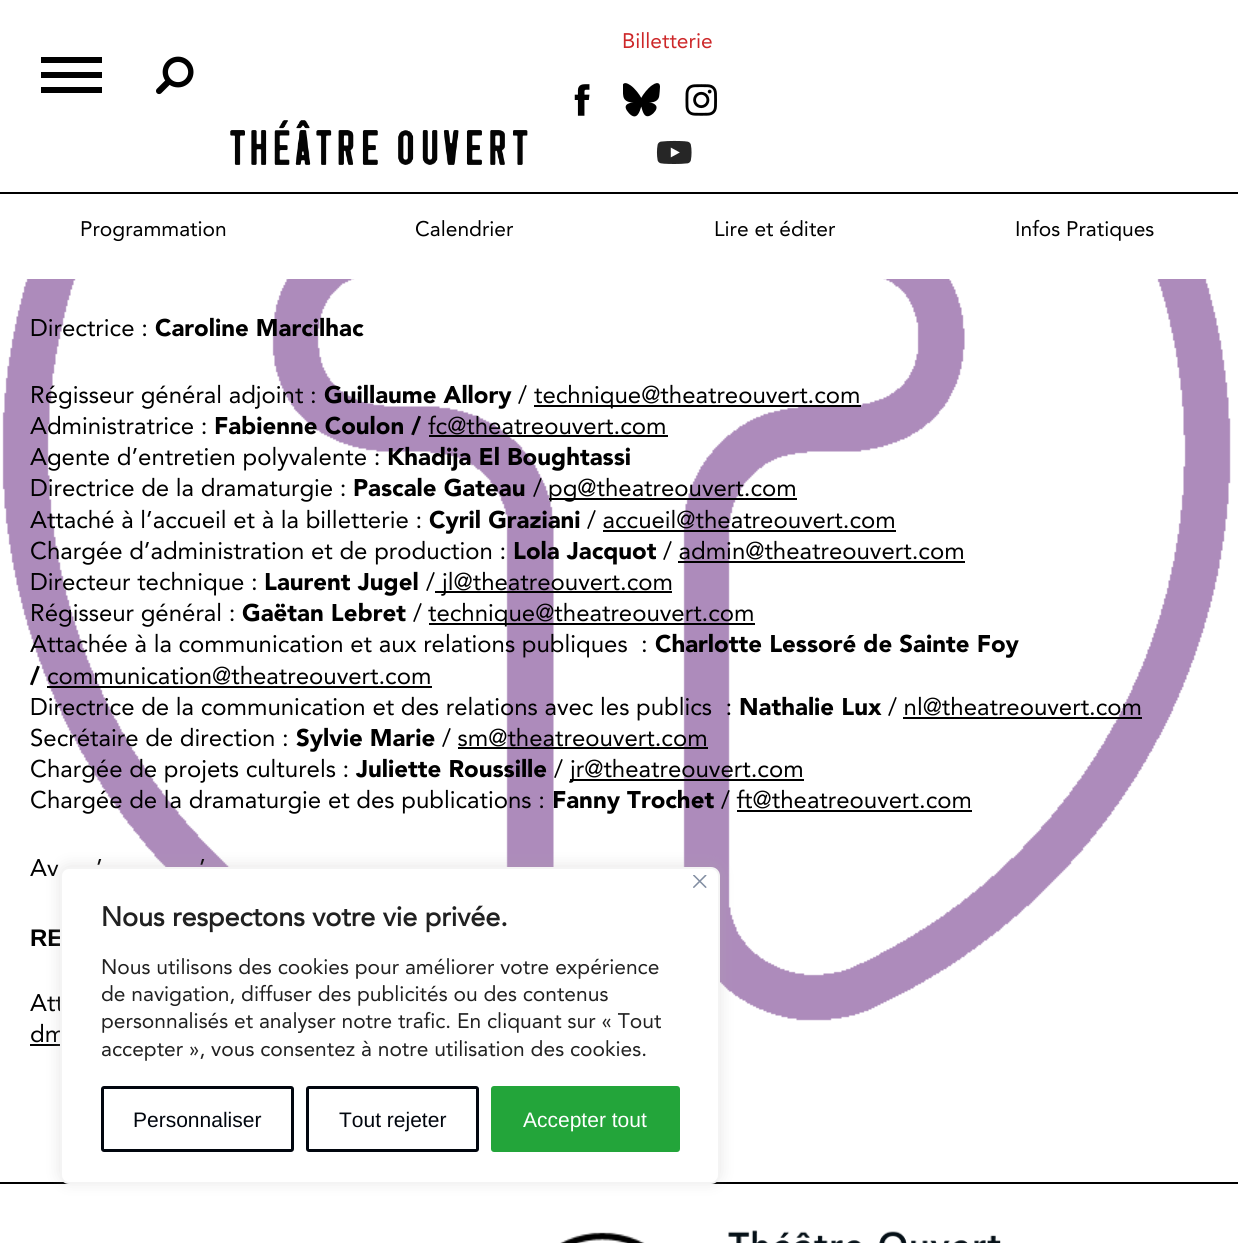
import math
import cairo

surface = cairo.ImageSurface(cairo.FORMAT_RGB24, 1238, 1243)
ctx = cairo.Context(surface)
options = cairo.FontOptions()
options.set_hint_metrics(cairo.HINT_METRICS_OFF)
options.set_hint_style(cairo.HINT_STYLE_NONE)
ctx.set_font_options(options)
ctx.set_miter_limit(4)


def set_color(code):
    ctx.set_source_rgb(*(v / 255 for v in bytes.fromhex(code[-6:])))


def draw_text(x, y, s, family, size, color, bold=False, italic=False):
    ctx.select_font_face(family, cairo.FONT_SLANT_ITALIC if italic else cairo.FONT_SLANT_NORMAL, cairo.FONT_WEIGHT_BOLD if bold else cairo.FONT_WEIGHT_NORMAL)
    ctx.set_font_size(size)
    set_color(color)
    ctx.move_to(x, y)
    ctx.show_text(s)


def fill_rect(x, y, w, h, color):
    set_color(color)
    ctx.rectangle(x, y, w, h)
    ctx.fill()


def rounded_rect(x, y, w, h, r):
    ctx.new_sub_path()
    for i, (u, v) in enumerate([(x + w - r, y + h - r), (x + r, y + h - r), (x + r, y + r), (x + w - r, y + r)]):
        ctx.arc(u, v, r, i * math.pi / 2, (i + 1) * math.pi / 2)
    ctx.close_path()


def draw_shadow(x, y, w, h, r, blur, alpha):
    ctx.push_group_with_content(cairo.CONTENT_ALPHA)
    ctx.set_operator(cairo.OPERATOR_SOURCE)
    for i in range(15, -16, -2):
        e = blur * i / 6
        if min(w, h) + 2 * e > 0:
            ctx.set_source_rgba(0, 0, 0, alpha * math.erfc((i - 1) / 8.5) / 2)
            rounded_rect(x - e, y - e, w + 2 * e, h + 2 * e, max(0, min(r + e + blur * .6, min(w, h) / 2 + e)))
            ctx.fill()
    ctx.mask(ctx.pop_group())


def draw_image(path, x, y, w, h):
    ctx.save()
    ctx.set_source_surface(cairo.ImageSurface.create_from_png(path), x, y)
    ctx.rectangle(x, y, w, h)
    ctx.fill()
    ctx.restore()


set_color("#ffffff")
ctx.paint()
draw_image("assets/img1.png", 2, 279, 1229, 742)
fill_rect(0, 192, 1238, 2, "#000000")
draw_text(622, 48, "Billetterie", "Avenir", 21, "#cd2729")
draw_image("assets/img2.png", 574, 84, 16, 32)
draw_image("assets/img3.png", 623, 83, 37, 34)
draw_image("assets/img4.png", 685, 84, 32, 32)
draw_image("assets/img5.png", 656, 140, 36, 24)
fill_rect(41, 72, 61, 6, "#000000")
fill_rect(41, 57, 61, 6, "#000000")
fill_rect(41, 87, 61, 6, "#000000")
draw_image("assets/img6.png", 156, 56, 38, 39)
draw_image("assets/img7.png", 230, 120, 298, 45)
draw_text(80, 236, "Programmation", "Avenir", 21, "#000000")
draw_text(415, 236, "Calendrier", "Avenir", 21, "#000000")
draw_text(714, 236, "Lire et éditer", "Avenir", 21, "#000000")
draw_text(1015, 236, "Infos Pratiques", "Avenir", 21, "#000000")
draw_text(30, 336, "Directrice :", "Avenir", 24, "#000000")
draw_text(155, 336, "Caroline Marcilhac", "Avenir Black", 24, "#000000")
draw_text(30, 403, "Régisseur général adjoint :", "Avenir", 24, "#000000")
draw_text(324, 403, "Guillaume Allory", "Avenir Black", 24, "#000000")
draw_text(518, 403, "/", "Avenir", 24, "#000000")
fill_rect(534, 405, 327, 2, "#000000")
draw_text(534, 403, "technique@theatreouvert.com", "Avenir", 24, "#000000")
draw_text(30, 434, "Administratrice :", "Avenir", 24, "#000000")
draw_text(214, 434, "Fabienne Coulon /", "Avenir Black", 24, "#000000")
draw_text(428, 434, "fc@theatreouvert.com", "Avenir", 24, "#000000")
fill_rect(429, 435, 239, 2, "#000000")
draw_text(30, 465, "Agente d’entretien polyvalente :", "Avenir", 24, "#000000")
draw_text(387, 465, "Khadija El Boughtassi", "Avenir Black", 24, "#000000")
draw_text(30, 496, "Directrice de la dramaturgie :", "Avenir", 24, "#000000")
draw_text(353, 496, "Pascale Gateau", "Avenir Black", 24, "#000000")
draw_text(533, 496, "/", "Avenir", 24, "#000000")
fill_rect(549, 498, 248, 2, "#000000")
draw_text(548, 496, "pg@theatreouvert.com", "Avenir", 24, "#000000")
draw_text(30, 528, "Attaché à l’accueil et à la billetterie :", "Avenir", 24, "#000000")
draw_text(429, 528, "Cyril Graziani", "Avenir Black", 24, "#000000")
draw_text(587, 528, "/ accueil@theatreouvert.com", "Avenir", 24, "#000000")
fill_rect(603, 530, 293, 2, "#000000")
draw_text(30, 559, "Chargée d’administration et de production :", "Avenir", 24, "#000000")
draw_text(513, 559, "Lola Jacquot", "Avenir Black", 24, "#000000")
draw_text(663, 559, "/ admin@theatreouvert.com", "Avenir", 24, "#000000")
fill_rect(678, 561, 287, 2, "#000000")
draw_text(30, 590, "Directeur technique :", "Avenir", 24, "#000000")
draw_text(264, 590, "Laurent Jugel", "Avenir Black", 24, "#000000")
draw_text(426, 590, "/", "Avenir", 24, "#000000")
fill_rect(435, 591, 237, 2, "#000000")
draw_text(442, 590, "jl@theatreouvert.com", "Avenir", 24, "#000000")
draw_text(30, 621, "Régisseur général :", "Avenir", 24, "#000000")
draw_text(242, 621, "Gaëtan Lebret", "Avenir Black", 24, "#000000")
draw_text(413, 621, "/", "Avenir", 24, "#000000")
fill_rect(429, 623, 326, 2, "#000000")
draw_text(428, 621, "technique@theatreouvert.com", "Avenir", 24, "#000000")
draw_text(30, 652, "Attachée à la communication et aux relations publiques  :", "Avenir", 24, "#000000")
draw_text(655, 652, "Charlotte Lessoré de Sainte Foy", "Avenir Black", 24, "#000000")
draw_text(30, 684, "/", "Avenir Black", 24, "#000000")
draw_text(47, 684, "communication@theatreouvert.com", "Avenir", 24, "#000000")
fill_rect(47, 686, 385, 2, "#000000")
draw_text(30, 715, "Directrice de la communication et des relations avec les publics  :", "Avenir", 24, "#000000")
draw_text(739, 715, "Nathalie Lux", "Avenir Black", 24, "#000000")
draw_text(888, 715, "/ nl@theatreouvert.com", "Avenir", 24, "#000000")
fill_rect(903, 717, 239, 2, "#000000")
draw_text(30, 746, "Secrétaire de direction :", "Avenir", 24, "#000000")
draw_text(296, 746, "Sylvie Marie", "Avenir Black", 24, "#000000")
draw_text(442, 746, "/ sm@theatreouvert.com", "Avenir", 24, "#000000")
fill_rect(458, 747, 250, 2, "#000000")
draw_text(30, 777, "Chargée de projets culturels :", "Avenir", 24, "#000000")
draw_text(356, 777, "Juliette Roussille", "Avenir Black", 24, "#000000")
draw_text(554, 777, "/", "Avenir", 24, "#000000")
fill_rect(570, 779, 234, 2, "#000000")
draw_text(570, 777, "jr@theatreouvert.com", "Avenir", 24, "#000000")
draw_text(30, 808, "Chargée de la dramaturgie et des publications :", "Avenir", 24, "#000000")
draw_text(552, 808, "Fanny Trochet", "Avenir Black", 24, "#000000")
draw_text(721, 808, "/ ft@theatreouvert.com", "Avenir", 24, "#000000")
fill_rect(737, 810, 235, 2, "#000000")
draw_text(30, 876, "Av", "Avenir", 24, "#000000")
draw_text(96, 876, "’", "Avenir", 24, "#000000")
draw_text(199, 876, "’", "Avenir", 24, "#000000")
draw_text(30, 946, "RE", "Liberation Sans", 24, "#000000", bold=True)
draw_text(30, 1011, "Att", "Avenir", 24, "#000000")
draw_text(30, 1042, "dm", "Avenir", 24, "#000000")
fill_rect(30, 1044, 30, 2, "#000000")
fill_rect(0, 1182, 1238, 2, "#000000")
draw_image("assets/img8.png", 560, 1232, 85, 11)
draw_image("assets/img9.png", 728, 1230, 273, 13)
set_color("#acabab")
draw_shadow(60, 866, 660, 316, 9, 7.5, 0.3)
set_color("#ffffff")
rounded_rect(61, 868, 658, 315, 8)
ctx.fill_preserve()
set_color("#f4f4f4")
ctx.stroke()
draw_image("assets/img10.png", 693, 875, 14, 13)
draw_text(101, 926, "Nous respectons votre vie privée.", "Avenir", 27, "#212121", bold=True)
draw_text(101, 974, "Nous utilisons des cookies pour améliorer votre expérience", "Avenir", 21, "#212121")
draw_text(101, 1001, "de navigation, diffuser des publicités ou des contenus", "Avenir", 21, "#212121")
draw_text(101, 1028, "personnalisés et analyser notre trafic. En cliquant sur « Tout", "Avenir", 21, "#212121")
draw_text(101, 1056, "accepter », vous consentez à notre utilisation des cookies.", "Avenir", 21, "#212121")
rounded_rect(102.5, 1087.5, 190, 63, 1.5)
set_color("#01060e")
ctx.set_line_width(3)
ctx.stroke()
draw_text(133, 1127, "Personnaliser", "Liberation Sans", 21, "#01060e")
rounded_rect(307.5, 1087.5, 170, 63, 1.5)
ctx.stroke()
draw_text(339, 1127, "Tout rejeter", "Liberation Sans", 21, "#01060e")
set_color("#23a53a")
rounded_rect(492.5, 1087.5, 186, 63, 1.5)
ctx.fill_preserve()
ctx.stroke()
draw_text(523, 1127, "Accepter tout", "Liberation Sans", 21, "#ffffff")
surface.write_to_png("output.png")
